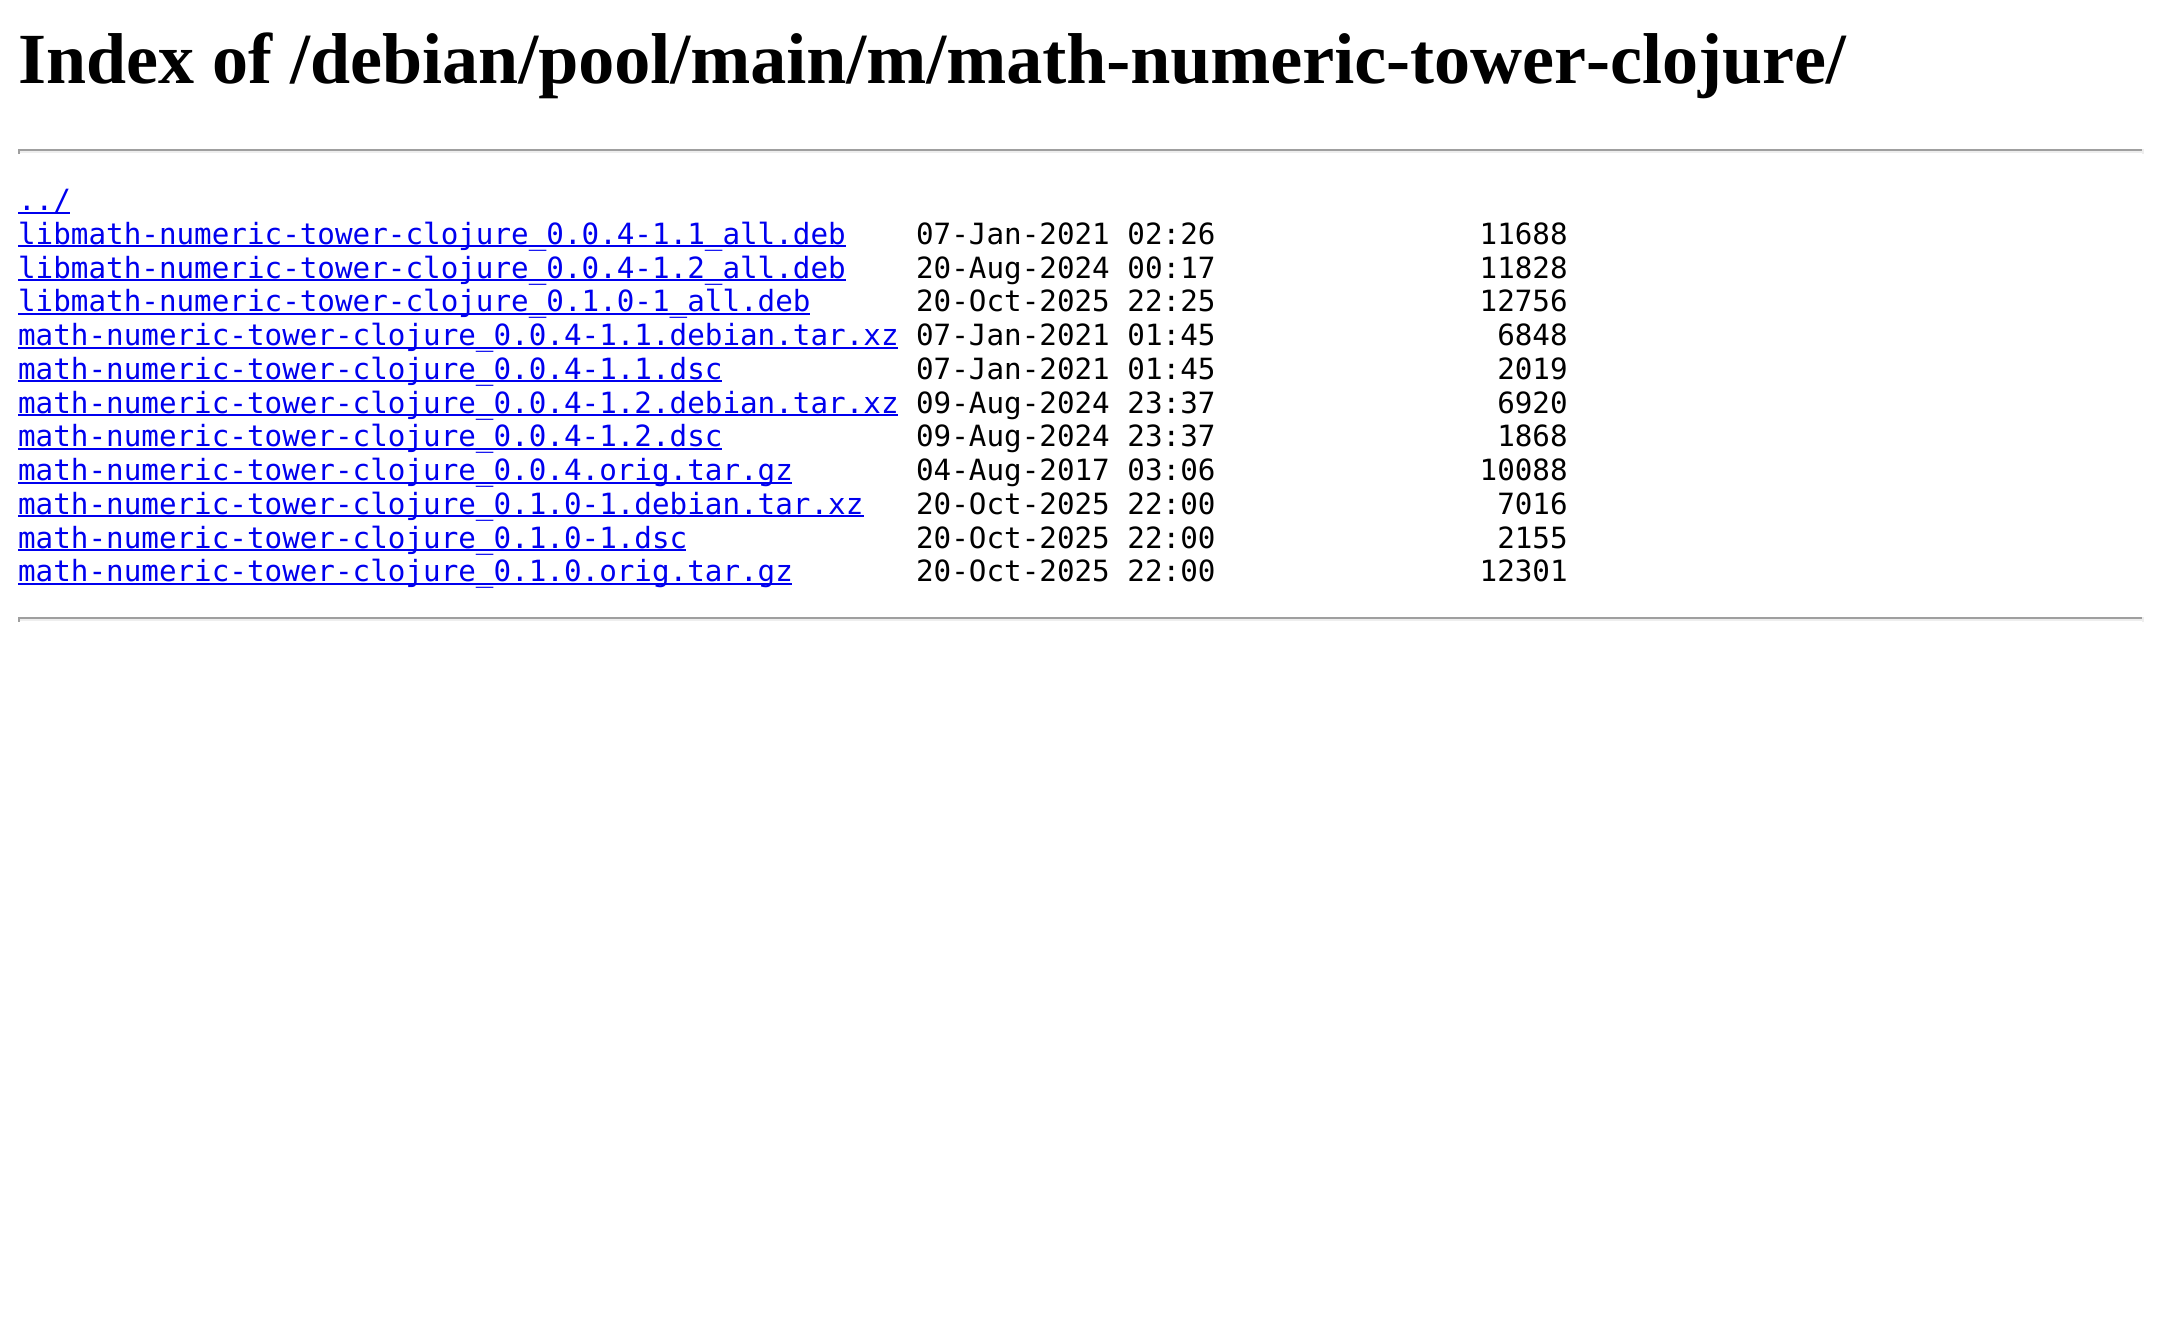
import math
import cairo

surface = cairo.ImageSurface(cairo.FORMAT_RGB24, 2162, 1344)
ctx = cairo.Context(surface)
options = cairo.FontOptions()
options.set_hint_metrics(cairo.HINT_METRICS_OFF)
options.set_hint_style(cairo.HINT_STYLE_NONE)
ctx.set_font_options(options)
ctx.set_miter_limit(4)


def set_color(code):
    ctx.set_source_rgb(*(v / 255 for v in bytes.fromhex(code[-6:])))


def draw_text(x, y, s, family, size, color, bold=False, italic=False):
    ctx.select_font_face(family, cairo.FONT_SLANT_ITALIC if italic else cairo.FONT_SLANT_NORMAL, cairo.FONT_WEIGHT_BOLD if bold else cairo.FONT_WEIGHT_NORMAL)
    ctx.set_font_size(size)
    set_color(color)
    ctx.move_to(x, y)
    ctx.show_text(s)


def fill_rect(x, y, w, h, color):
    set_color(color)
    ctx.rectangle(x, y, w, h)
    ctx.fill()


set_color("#ffffff")
ctx.paint()
draw_text(18, 83, "Index of /debian/pool/main/m/math-numeric-tower-clojure/", "Liberation Serif", 72, "#000000", bold=True)
fill_rect(18, 149, 2126, 2, "#9f9f9f")
fill_rect(2142, 149, 2, 5, "#eeeeee")
fill_rect(18, 151, 2126, 2, "#eeeeee")
fill_rect(18, 149, 2, 5, "#9f9f9f")
fill_rect(18, 212, 52, 2, "#0000ee")
draw_text(18, 210, "../", "DejaVu Sans Mono", 29.25, "#0000ee")
fill_rect(18, 245, 828, 2, "#0000ee")
draw_text(18, 244, "libmath-numeric-tower-clojure_0.0.4-1.1_all.deb", "DejaVu Sans Mono", 29.25, "#0000ee")
draw_text(916, 244, "07-Jan-2021 02:26               11688", "DejaVu Sans Mono", 29.25, "#000000")
fill_rect(18, 279, 828, 2, "#0000ee")
draw_text(18, 278, "libmath-numeric-tower-clojure_0.0.4-1.2_all.deb", "DejaVu Sans Mono", 29.25, "#0000ee")
draw_text(916, 278, "20-Aug-2024 00:17               11828", "DejaVu Sans Mono", 29.25, "#000000")
fill_rect(18, 313, 792, 2, "#0000ee")
draw_text(18, 311, "libmath-numeric-tower-clojure_0.1.0-1_all.deb", "DejaVu Sans Mono", 29.25, "#0000ee")
draw_text(916, 311, "20-Oct-2025 22:25               12756", "DejaVu Sans Mono", 29.25, "#000000")
fill_rect(18, 347, 880, 2, "#0000ee")
draw_text(18, 345, "math-numeric-tower-clojure_0.0.4-1.1.debian.tar.xz", "DejaVu Sans Mono", 29.25, "#0000ee")
draw_text(916, 345, "07-Jan-2021 01:45                6848", "DejaVu Sans Mono", 29.25, "#000000")
fill_rect(18, 380, 704, 2, "#0000ee")
draw_text(18, 379, "math-numeric-tower-clojure_0.0.4-1.1.dsc", "DejaVu Sans Mono", 29.25, "#0000ee")
draw_text(916, 379, "07-Jan-2021 01:45                2019", "DejaVu Sans Mono", 29.25, "#000000")
fill_rect(18, 414, 880, 2, "#0000ee")
draw_text(18, 413, "math-numeric-tower-clojure_0.0.4-1.2.debian.tar.xz", "DejaVu Sans Mono", 29.25, "#0000ee")
draw_text(916, 413, "09-Aug-2024 23:37                6920", "DejaVu Sans Mono", 29.25, "#000000")
fill_rect(18, 448, 704, 2, "#0000ee")
draw_text(18, 446, "math-numeric-tower-clojure_0.0.4-1.2.dsc", "DejaVu Sans Mono", 29.25, "#0000ee")
draw_text(916, 446, "09-Aug-2024 23:37                1868", "DejaVu Sans Mono", 29.25, "#000000")
fill_rect(18, 482, 774, 2, "#0000ee")
draw_text(18, 480, "math-numeric-tower-clojure_0.0.4.orig.tar.gz", "DejaVu Sans Mono", 29.25, "#0000ee")
draw_text(916, 480, "04-Aug-2017 03:06               10088", "DejaVu Sans Mono", 29.25, "#000000")
fill_rect(18, 515, 846, 2, "#0000ee")
draw_text(18, 514, "math-numeric-tower-clojure_0.1.0-1.debian.tar.xz", "DejaVu Sans Mono", 29.25, "#0000ee")
draw_text(916, 514, "20-Oct-2025 22:00                7016", "DejaVu Sans Mono", 29.25, "#000000")
fill_rect(18, 549, 668, 2, "#0000ee")
draw_text(18, 548, "math-numeric-tower-clojure_0.1.0-1.dsc", "DejaVu Sans Mono", 29.25, "#0000ee")
draw_text(916, 548, "20-Oct-2025 22:00                2155", "DejaVu Sans Mono", 29.25, "#000000")
fill_rect(18, 583, 774, 2, "#0000ee")
draw_text(18, 581, "math-numeric-tower-clojure_0.1.0.orig.tar.gz", "DejaVu Sans Mono", 29.25, "#0000ee")
draw_text(916, 581, "20-Oct-2025 22:00               12301", "DejaVu Sans Mono", 29.25, "#000000")
fill_rect(18, 617, 2126, 2, "#9f9f9f")
fill_rect(2142, 617, 2, 5, "#eeeeee")
fill_rect(18, 619, 2126, 2, "#eeeeee")
fill_rect(18, 617, 2, 5, "#9f9f9f")
surface.write_to_png("output.png")
